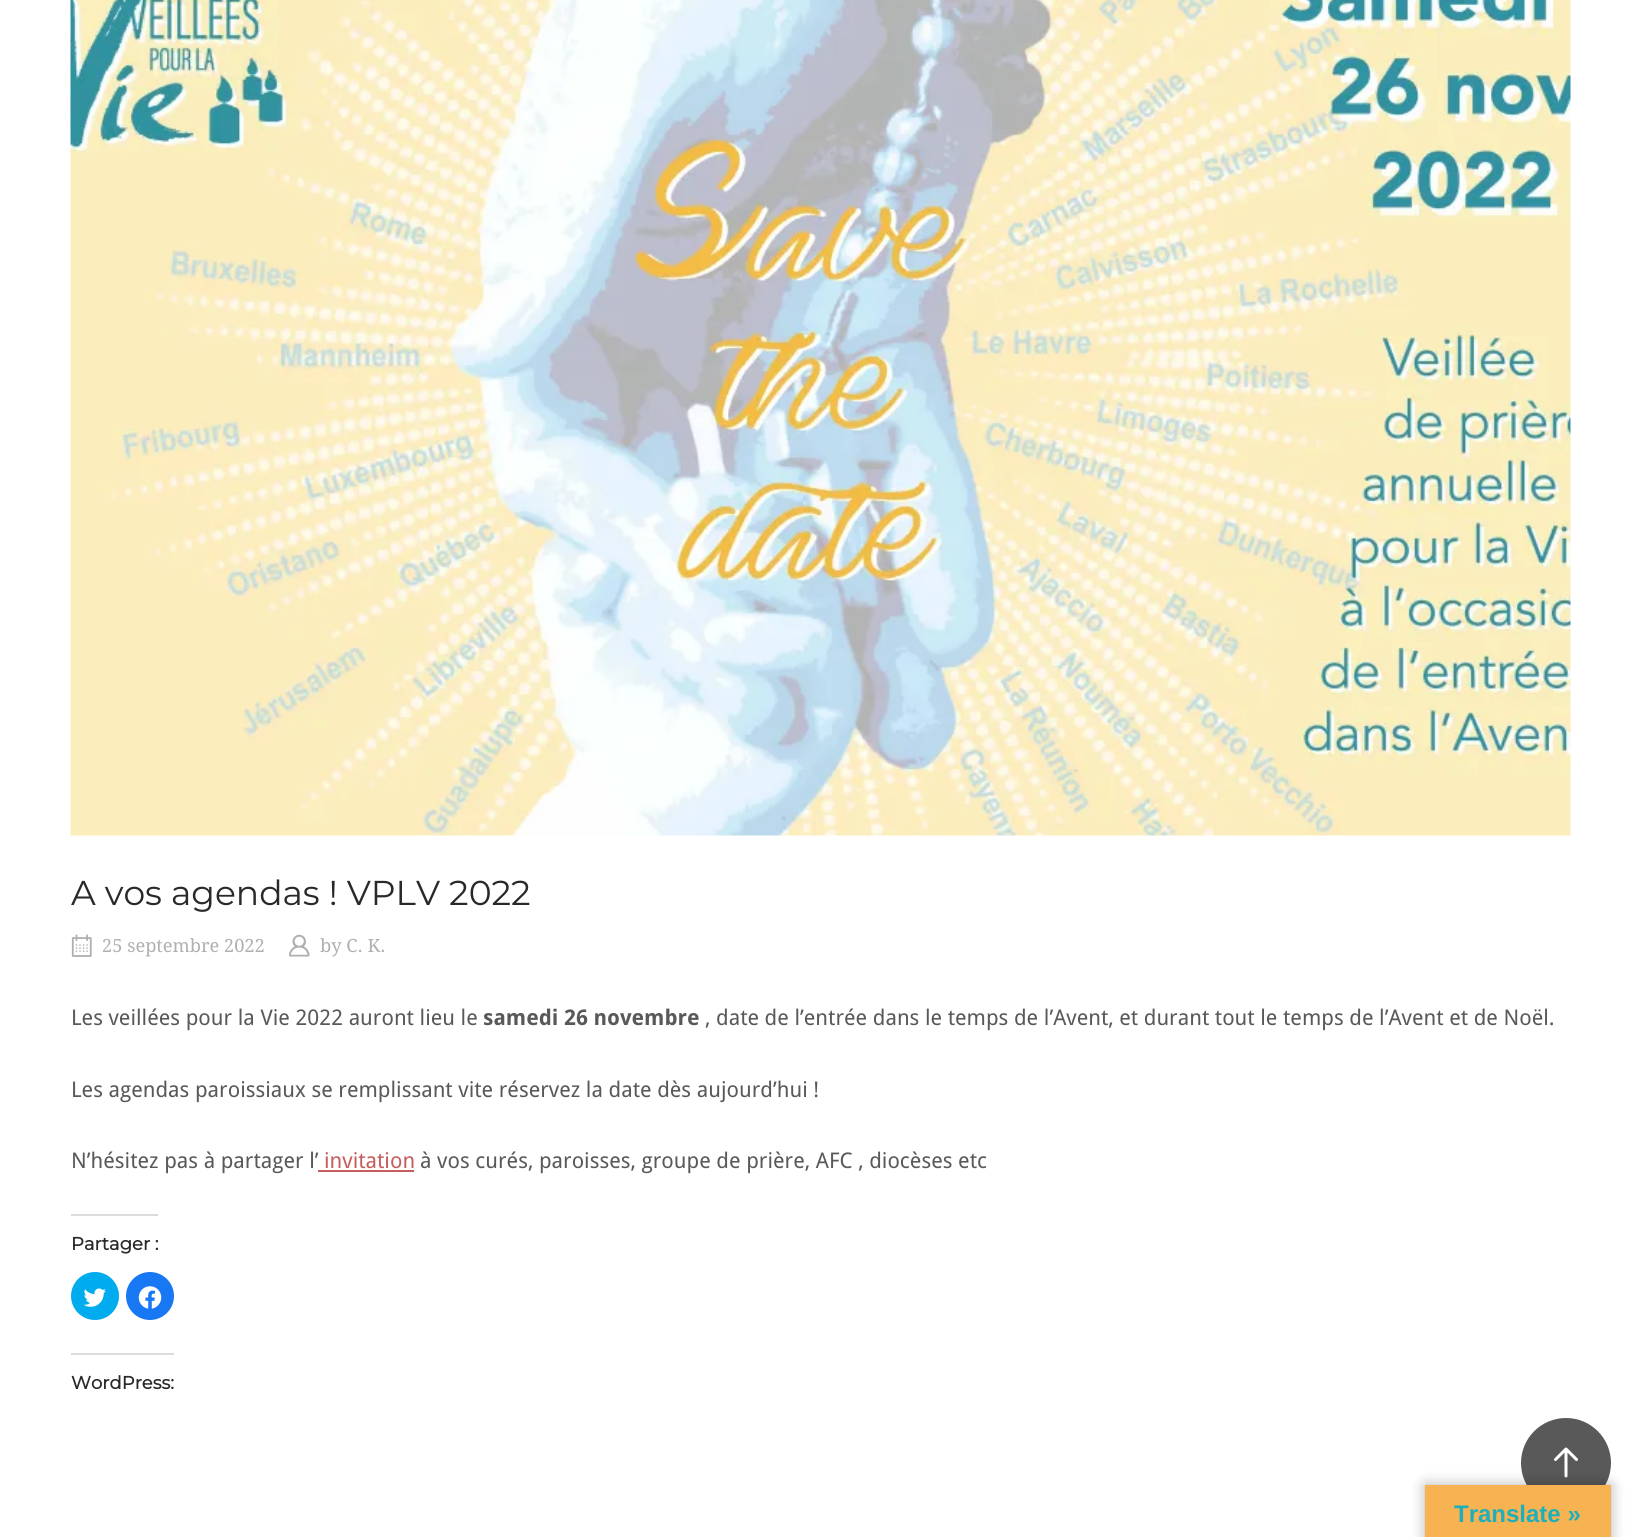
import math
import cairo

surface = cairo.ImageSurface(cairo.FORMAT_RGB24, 1641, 1537)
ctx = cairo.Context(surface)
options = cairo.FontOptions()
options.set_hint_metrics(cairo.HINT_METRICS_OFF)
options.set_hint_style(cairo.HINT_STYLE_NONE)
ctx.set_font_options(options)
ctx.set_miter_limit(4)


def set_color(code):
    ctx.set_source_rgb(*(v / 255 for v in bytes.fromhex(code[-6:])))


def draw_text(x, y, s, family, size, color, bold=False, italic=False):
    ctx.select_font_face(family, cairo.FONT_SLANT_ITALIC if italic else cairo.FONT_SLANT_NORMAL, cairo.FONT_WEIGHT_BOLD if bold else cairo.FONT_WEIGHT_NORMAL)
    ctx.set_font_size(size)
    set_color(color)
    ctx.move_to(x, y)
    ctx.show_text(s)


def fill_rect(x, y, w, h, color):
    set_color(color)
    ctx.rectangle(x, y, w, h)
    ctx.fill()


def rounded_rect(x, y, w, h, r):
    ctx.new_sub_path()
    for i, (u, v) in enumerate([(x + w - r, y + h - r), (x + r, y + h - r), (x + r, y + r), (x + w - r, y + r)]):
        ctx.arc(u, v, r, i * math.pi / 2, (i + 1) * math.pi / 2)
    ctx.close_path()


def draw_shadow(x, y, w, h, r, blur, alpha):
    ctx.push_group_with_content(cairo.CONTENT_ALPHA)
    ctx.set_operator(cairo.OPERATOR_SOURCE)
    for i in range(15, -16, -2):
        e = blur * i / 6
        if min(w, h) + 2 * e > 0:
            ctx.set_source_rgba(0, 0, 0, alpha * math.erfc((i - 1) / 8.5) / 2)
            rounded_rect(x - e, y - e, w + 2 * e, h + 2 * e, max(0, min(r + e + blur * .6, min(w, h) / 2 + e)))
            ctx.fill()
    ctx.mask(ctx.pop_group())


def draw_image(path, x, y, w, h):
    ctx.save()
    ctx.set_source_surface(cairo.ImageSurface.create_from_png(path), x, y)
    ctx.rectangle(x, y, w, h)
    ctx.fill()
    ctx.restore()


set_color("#ffffff")
ctx.paint()
draw_image("assets/img1.png", 70, 0, 1501, 836)
draw_text(71, 905, "A vos agendas ! VPLV 2022", "Montserrat Thin", 34.5, "#292929")
draw_image("assets/img2.png", 71, 934, 21, 23)
draw_text(102, 952, "25 septembre 2022", "Droid Serif", 18.25, "#b0b0b0")
draw_image("assets/img3.png", 289, 934, 21, 23)
draw_text(320, 952, "by C. K.", "Droid Serif", 18.25, "#b0b0b0")
draw_text(71, 1025, "Les veillées pour la Vie 2022 auront lieu le", "Droid Sans", 21.6, "#595959")
draw_text(483, 1025, "samedi 26 novembre", "Droid Sans", 21.6, "#595959", bold=True)
draw_text(705, 1025, ", date de l’entrée dans le temps de l’Avent, et durant tout le temps de l’Avent et de Noël.", "Droid Sans", 21.6, "#595959")
draw_text(71, 1097, "Les agendas paroissiaux se remplissant vite réservez la date dès aujourd’hui !", "Droid Sans", 21.6, "#595959")
draw_text(71, 1168, "N’hésitez pas à partager l’", "Droid Sans", 21.6, "#595959")
draw_text(324, 1168, "invitation", "Droid Sans", 21.6, "#c75d5d")
fill_rect(318, 1170, 96, 2, "#c75d5d")
draw_text(420, 1168, "à vos curés, paroisses, groupe de prière, AFC , diocèses etc", "Droid Sans", 21.6, "#595959")
fill_rect(71, 1214, 87, 2, "#dcdcde")
draw_text(71, 1250, "Partager :", "Montserrat", 18, "#292929", bold=True)
set_color("#00acee")
ctx.new_path()
ctx.arc(95, 1296, 24, 0, 2 * math.pi)
ctx.fill()
draw_image("assets/img4.png", 83, 1288, 23, 19)
set_color("#1877f2")
ctx.arc(150, 1296, 24, 0, 2 * math.pi)
ctx.fill()
draw_image("assets/img5.png", 138, 1286, 24, 23)
fill_rect(71, 1353, 103, 2, "#dcdcde")
draw_text(71, 1389, "WordPress:", "Montserrat", 18, "#292929", bold=True)
set_color("#595959")
ctx.new_path()
ctx.arc(1566, 1463, 45, 0, 2 * math.pi)
ctx.fill()
draw_image("assets/img6.png", 1554, 1447, 24, 31)
set_color("#000000")
draw_shadow(1425, 1485, 186, 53, 0, 7, 0.3)
fill_rect(1425, 1485, 186, 52, "#f7b251")
draw_text(1454, 1522, "Translate »", "Liberation Sans", 24, "#1fafba", bold=True)
surface.write_to_png("output.png")
